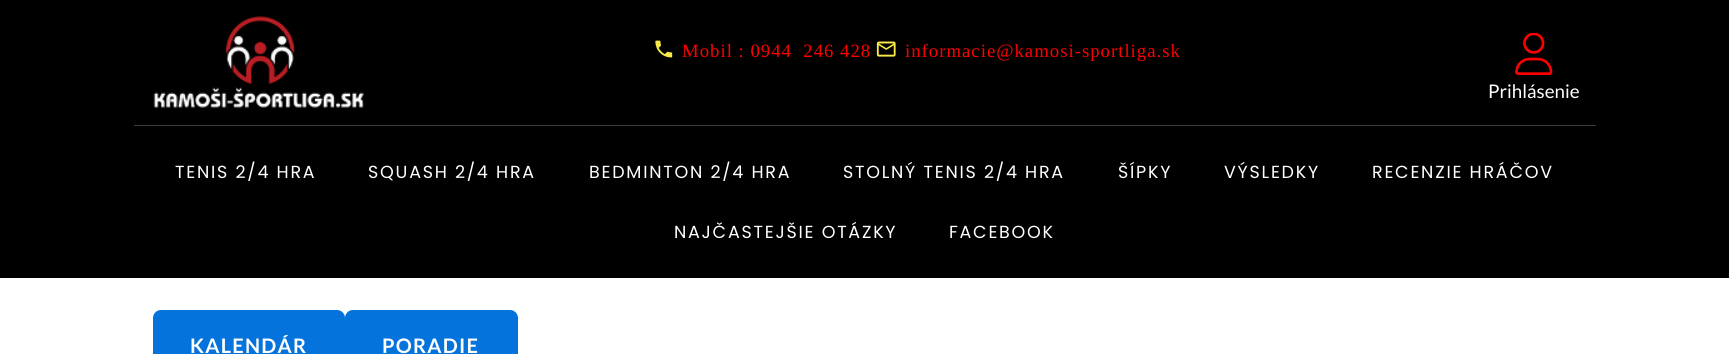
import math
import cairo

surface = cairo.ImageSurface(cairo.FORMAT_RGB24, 1729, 354)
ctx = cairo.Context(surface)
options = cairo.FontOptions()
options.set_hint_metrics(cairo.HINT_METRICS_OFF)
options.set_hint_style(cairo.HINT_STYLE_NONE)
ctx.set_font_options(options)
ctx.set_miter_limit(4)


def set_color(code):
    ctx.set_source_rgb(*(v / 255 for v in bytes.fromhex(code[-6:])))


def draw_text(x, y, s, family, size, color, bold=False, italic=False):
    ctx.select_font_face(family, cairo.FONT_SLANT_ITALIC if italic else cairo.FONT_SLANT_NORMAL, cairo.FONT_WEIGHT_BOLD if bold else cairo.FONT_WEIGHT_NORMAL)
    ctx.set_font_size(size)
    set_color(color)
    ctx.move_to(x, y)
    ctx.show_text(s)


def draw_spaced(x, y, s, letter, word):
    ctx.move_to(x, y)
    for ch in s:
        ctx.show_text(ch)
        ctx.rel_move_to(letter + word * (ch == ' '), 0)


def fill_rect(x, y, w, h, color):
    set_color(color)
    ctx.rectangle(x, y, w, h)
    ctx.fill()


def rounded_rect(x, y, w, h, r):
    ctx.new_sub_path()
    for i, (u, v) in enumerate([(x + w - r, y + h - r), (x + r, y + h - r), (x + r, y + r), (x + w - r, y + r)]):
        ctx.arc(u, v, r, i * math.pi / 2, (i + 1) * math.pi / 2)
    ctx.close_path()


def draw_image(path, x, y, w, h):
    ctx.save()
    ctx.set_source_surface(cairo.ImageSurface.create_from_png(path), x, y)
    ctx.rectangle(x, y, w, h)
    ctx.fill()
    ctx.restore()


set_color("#ffffff")
ctx.paint()
fill_rect(0, 0, 1729, 278, "#000000")
draw_image("assets/img1.png", 153, 16, 211, 92)
draw_image("assets/img2.png", 655, 40, 18, 18)
ctx.select_font_face("Liberation Serif")
ctx.set_font_size(18.75)
set_color("#ff0000")
draw_spaced(682, 57, "Mobil : 0944  246 428", 1, 0)
draw_image("assets/img3.png", 876, 41, 20, 16)
draw_spaced(905, 57, "informacie@kamosi-sportliga.sk", 1, 0)
draw_image("assets/img4.png", 1515, 33, 38, 42)
draw_text(1488, 98, "Prihlásenie", "Lato", 18.75, "#ffffff")
fill_rect(134, 125, 1462, 1, "#3b3b3b")
ctx.select_font_face("Poppins")
ctx.set_font_size(17.5)
set_color("#ffffff")
draw_spaced(175, 178, "TENIS 2/4 HRA", 1.75, 0)
draw_spaced(368, 178, "SQUASH 2/4 HRA", 1.75, 0)
draw_spaced(589, 178, "BEDMINTON 2/4 HRA", 1.75, 0)
draw_spaced(843, 178, "STOLNÝ TENIS 2/4 HRA", 1.75, 0)
draw_spaced(1118, 178, "ŠÍPKY", 1.75, 0)
draw_spaced(1224, 178, "VÝSLEDKY", 1.75, 0)
draw_spaced(1372, 178, "RECENZIE HRÁČOV", 1.75, 0)
draw_spaced(674, 238, "NAJČASTEJŠIE OTÁZKY", 1.75, 0)
draw_spaced(949, 238, "FACEBOOK", 1.75, 0)
set_color("#0473db")
rounded_rect(154.5, 311.5, 189, 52, 6.5)
ctx.fill_preserve()
ctx.set_line_width(3)
ctx.stroke()
ctx.select_font_face("Lato", cairo.FONT_SLANT_NORMAL, cairo.FONT_WEIGHT_BOLD)
ctx.set_font_size(20)
set_color("#ffffff")
draw_spaced(190, 353, "KALENDÁR", 1.25, 0)
set_color("#0473db")
rounded_rect(346.5, 311.5, 170, 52, 6.5)
ctx.fill_preserve()
ctx.stroke()
set_color("#ffffff")
draw_spaced(382, 353, "PORADIE", 1.25, 0)
surface.write_to_png("output.png")
